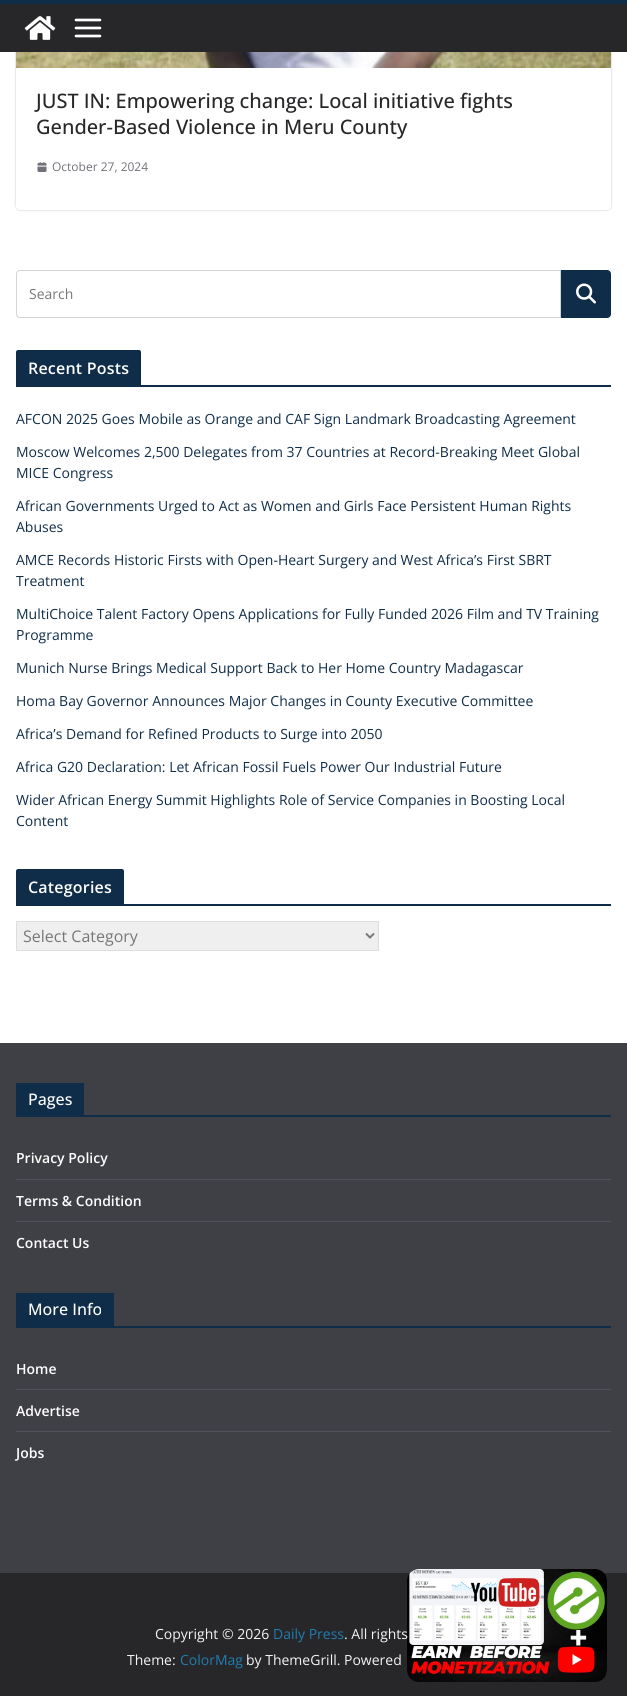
import math
import cairo

surface = cairo.ImageSurface(cairo.FORMAT_RGB24, 627, 1696)
ctx = cairo.Context(surface)
options = cairo.FontOptions()
options.set_hint_metrics(cairo.HINT_METRICS_OFF)
options.set_hint_style(cairo.HINT_STYLE_NONE)
ctx.set_font_options(options)
ctx.set_miter_limit(4)


def set_color(code):
    ctx.set_source_rgb(*(v / 255 for v in bytes.fromhex(code[-6:])))


def draw_text(x, y, s, family, size, color, bold=False, italic=False):
    ctx.select_font_face(family, cairo.FONT_SLANT_ITALIC if italic else cairo.FONT_SLANT_NORMAL, cairo.FONT_WEIGHT_BOLD if bold else cairo.FONT_WEIGHT_NORMAL)
    ctx.set_font_size(size)
    set_color(color)
    ctx.move_to(x, y)
    ctx.show_text(s)


def draw_spaced(x, y, s, letter, word):
    ctx.move_to(x, y)
    for ch in s:
        ctx.show_text(ch)
        ctx.rel_move_to(letter + word * (ch == ' '), 0)


def fill_rect(x, y, w, h, color):
    set_color(color)
    ctx.rectangle(x, y, w, h)
    ctx.fill()


def rounded_rect(x, y, w, h, r):
    ctx.new_sub_path()
    for i, (u, v) in enumerate([(x + w - r, y + h - r), (x + r, y + h - r), (x + r, y + r), (x + w - r, y + r)]):
        ctx.arc(u, v, r, i * math.pi / 2, (i + 1) * math.pi / 2)
    ctx.close_path()


def draw_shadow(x, y, w, h, r, blur, alpha):
    ctx.push_group_with_content(cairo.CONTENT_ALPHA)
    ctx.set_operator(cairo.OPERATOR_SOURCE)
    for i in range(15, -16, -2):
        e = blur * i / 6
        if min(w, h) + 2 * e > 0:
            ctx.set_source_rgba(0, 0, 0, alpha * math.erfc((i - 1) / 8.5) / 2)
            rounded_rect(x - e, y - e, w + 2 * e, h + 2 * e, max(0, min(r + e + blur * .6, min(w, h) / 2 + e)))
            ctx.fill()
    ctx.mask(ctx.pop_group())


def draw_image(path, x, y, w, h):
    ctx.save()
    ctx.set_source_surface(cairo.ImageSurface.create_from_png(path), x, y)
    ctx.rectangle(x, y, w, h)
    ctx.fill()
    ctx.restore()


set_color("#ffffff")
ctx.paint()
ctx.save()
ctx.set_fill_rule(cairo.FILL_RULE_EVEN_ODD)
ctx.new_path()
ctx.move_to(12, 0)
ctx.line_to(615, 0)
ctx.line_to(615, 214)
ctx.line_to(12, 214)
ctx.close_path()
ctx.move_to(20, -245)
ctx.line_to(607, -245)
ctx.curve_to(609, -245, 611, -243, 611, -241)
ctx.line_to(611, 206)
ctx.curve_to(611, 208, 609, 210, 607, 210)
ctx.line_to(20, 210)
ctx.curve_to(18, 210, 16, 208, 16, 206)
ctx.line_to(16, -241)
ctx.curve_to(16, -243, 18, -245, 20, -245)
ctx.close_path()
ctx.clip()
set_color("#000000")
draw_shadow(16, -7, 595, 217, 4, 1, 0.24)
ctx.restore()
fill_rect(0, 4, 627, 48, "#27272a")
fill_rect(0, 0, 627, 4, "#0f2d49")
draw_image("assets/img1.png", 24, 16, 32, 24)
draw_image("assets/img2.png", 74, 18, 28, 20)
draw_image("assets/img3.png", 16, 52, 595, 16)
draw_text(36, 108, "JUST IN: Empowering change: Local initiative fights", "Open Sans Medium", 20, "#27272a")
draw_text(36, 134, "Gender-Based Violence in Meru County", "Open Sans Medium", 20, "#27272a")
draw_image("assets/img4.png", 37, 162, 10, 10)
draw_text(52, 171, "October 27, 2024", "Open Sans", 12, "#71717a")
fill_rect(0, 1043, 627, 530, "#3f3f46")
fill_rect(0, 1573, 627, 123, "#27272a")
set_color("#554885")
rounded_rect(559, 1628, 48, 48, 4)
ctx.fill()
draw_image("assets/img5.png", 407, 1569, 200, 113)
ctx.new_path()
ctx.move_to(20, 270.5)
ctx.line_to(560.5, 270.5)
ctx.line_to(560.5, 317.5)
ctx.line_to(20, 317.5)
ctx.curve_to(18, 317.5, 16.5, 316, 16.5, 314)
ctx.line_to(16.5, 274)
ctx.curve_to(16.5, 272, 18, 270.5, 20, 270.5)
ctx.close_path()
set_color("#d4d4d8")
ctx.set_line_width(1)
ctx.stroke()
draw_text(29, 299, "Search", "Open Sans", 14, "#777777")
set_color("#0f2d49")
ctx.new_path()
ctx.move_to(561.5, 270.5)
ctx.line_to(607, 270.5)
ctx.curve_to(609, 270.5, 610.5, 272, 610.5, 274)
ctx.line_to(610.5, 314)
ctx.curve_to(610.5, 316, 609, 317.5, 607, 317.5)
ctx.line_to(561.5, 317.5)
ctx.close_path()
ctx.fill_preserve()
ctx.stroke()
draw_image("assets/img6.png", 576, 283, 20, 21)
fill_rect(16, 385, 595, 2, "#0f2d49")
ctx.new_path()
ctx.move_to(18, 350)
ctx.line_to(139, 350)
ctx.curve_to(140, 350, 141, 351, 141, 352)
ctx.line_to(141, 385)
ctx.line_to(16, 385)
ctx.line_to(16, 352)
ctx.curve_to(16, 351, 17, 350, 18, 350)
ctx.close_path()
ctx.fill()
ctx.select_font_face("Open Sans SemiBold")
ctx.set_font_size(16)
set_color("#ffffff")
draw_spaced(28, 374, "Recent Posts", 0.2, 0)
draw_text(16, 424, "AFCON 2025 Goes Mobile as Orange and CAF Sign Landmark Broadcasting Agreement", "Open Sans", 14, "#0f2d49")
draw_text(16, 457, "Moscow Welcomes 2,500 Delegates from 37 Countries at Record-Breaking Meet Global", "Open Sans", 14, "#0f2d49")
draw_text(16, 478, "MICE Congress", "Open Sans", 14, "#0f2d49")
draw_text(16, 511, "African Governments Urged to Act as Women and Girls Face Persistent Human Rights", "Open Sans", 14, "#0f2d49")
draw_text(16, 532, "Abuses", "Open Sans", 14, "#0f2d49")
draw_text(16, 565, "AMCE Records Historic Firsts with Open-Heart Surgery and West Africa’s First SBRT", "Open Sans", 14, "#0f2d49")
draw_text(16, 586, "Treatment", "Open Sans", 14, "#0f2d49")
draw_text(16, 619, "MultiChoice Talent Factory Opens Applications for Fully Funded 2026 Film and TV Training", "Open Sans", 14, "#0f2d49")
draw_text(16, 640, "Programme", "Open Sans", 14, "#0f2d49")
draw_text(16, 673, "Munich Nurse Brings Medical Support Back to Her Home Country Madagascar", "Open Sans", 14, "#0f2d49")
draw_text(16, 706, "Homa Bay Governor Announces Major Changes in County Executive Committee", "Open Sans", 14, "#0f2d49")
draw_text(16, 739, "Africa’s Demand for Refined Products to Surge into 2050", "Open Sans", 14, "#0f2d49")
draw_text(16, 772, "Africa G20 Declaration: Let African Fossil Fuels Power Our Industrial Future", "Open Sans", 14, "#0f2d49")
draw_text(16, 805, "Wider African Energy Summit Highlights Role of Service Companies in Boosting Local", "Open Sans", 14, "#0f2d49")
draw_text(16, 826, "Content", "Open Sans", 14, "#0f2d49")
fill_rect(16, 904, 595, 2, "#0f2d49")
ctx.new_path()
ctx.move_to(18, 869)
ctx.line_to(122, 869)
ctx.curve_to(123, 869, 124, 870, 124, 871)
ctx.line_to(124, 904)
ctx.line_to(16, 904)
ctx.line_to(16, 871)
ctx.curve_to(16, 870, 17, 869, 18, 869)
ctx.close_path()
ctx.fill()
ctx.select_font_face("Open Sans SemiBold")
ctx.set_font_size(16)
set_color("#ffffff")
draw_spaced(28, 893, "Categories", 0.2, 0)
set_color("#efefef")
ctx.rectangle(16.5, 921.5, 362, 29)
ctx.fill_preserve()
set_color("#dddddd")
ctx.stroke()
ctx.new_path()
ctx.move_to(366, 933.5)
ctx.line_to(370, 937.5)
ctx.line_to(374, 933.5)
set_color("#777777")
ctx.set_line_width(2)
ctx.stroke()
draw_text(23, 942, "Select Category", "Open Sans", 16, "#777777")
fill_rect(16, 1115, 595, 2, "#0f2d49")
fill_rect(16, 1083, 68, 32, "#0f2d49")
draw_text(28, 1105, "Pages", "Open Sans Medium", 16, "#ffffff")
fill_rect(16, 1179, 595, 1, "#52525b")
draw_text(16, 1163, "Privacy Policy", "Open Sans SemiBold", 14, "#ffffff")
fill_rect(16, 1221, 595, 1, "#52525b")
draw_text(16, 1206, "Terms & Condition", "Open Sans SemiBold", 14, "#ffffff")
draw_text(16, 1248, "Contact Us", "Open Sans SemiBold", 14, "#ffffff")
fill_rect(16, 1326, 595, 2, "#0f2d49")
fill_rect(16, 1293, 98, 33, "#0f2d49")
draw_text(28, 1315, "More Info", "Open Sans Medium", 16, "#ffffff")
fill_rect(16, 1389, 595, 1, "#52525b")
draw_text(16, 1374, "Home", "Open Sans SemiBold", 14, "#ffffff")
fill_rect(16, 1431, 595, 1, "#52525b")
draw_text(16, 1416, "Advertise", "Open Sans SemiBold", 14, "#ffffff")
draw_text(16, 1458, "Jobs", "Open Sans SemiBold", 14, "#ffffff")
draw_text(155, 1639, "Copyright © 2026", "Open Sans", 14, "#f4f4f5")
draw_text(273, 1639, "Daily Press", "Open Sans", 14, "#207daf")
draw_text(344, 1639, ". All rights", "Open Sans", 14, "#f4f4f5")
draw_text(127, 1665, "Theme:", "Open Sans", 14, "#f4f4f5")
draw_text(180, 1665, "ColorMag", "Open Sans", 14, "#207daf")
draw_text(246, 1665, "by ThemeGrill. Powered", "Open Sans", 14, "#f4f4f5")
surface.write_to_png("output.png")
